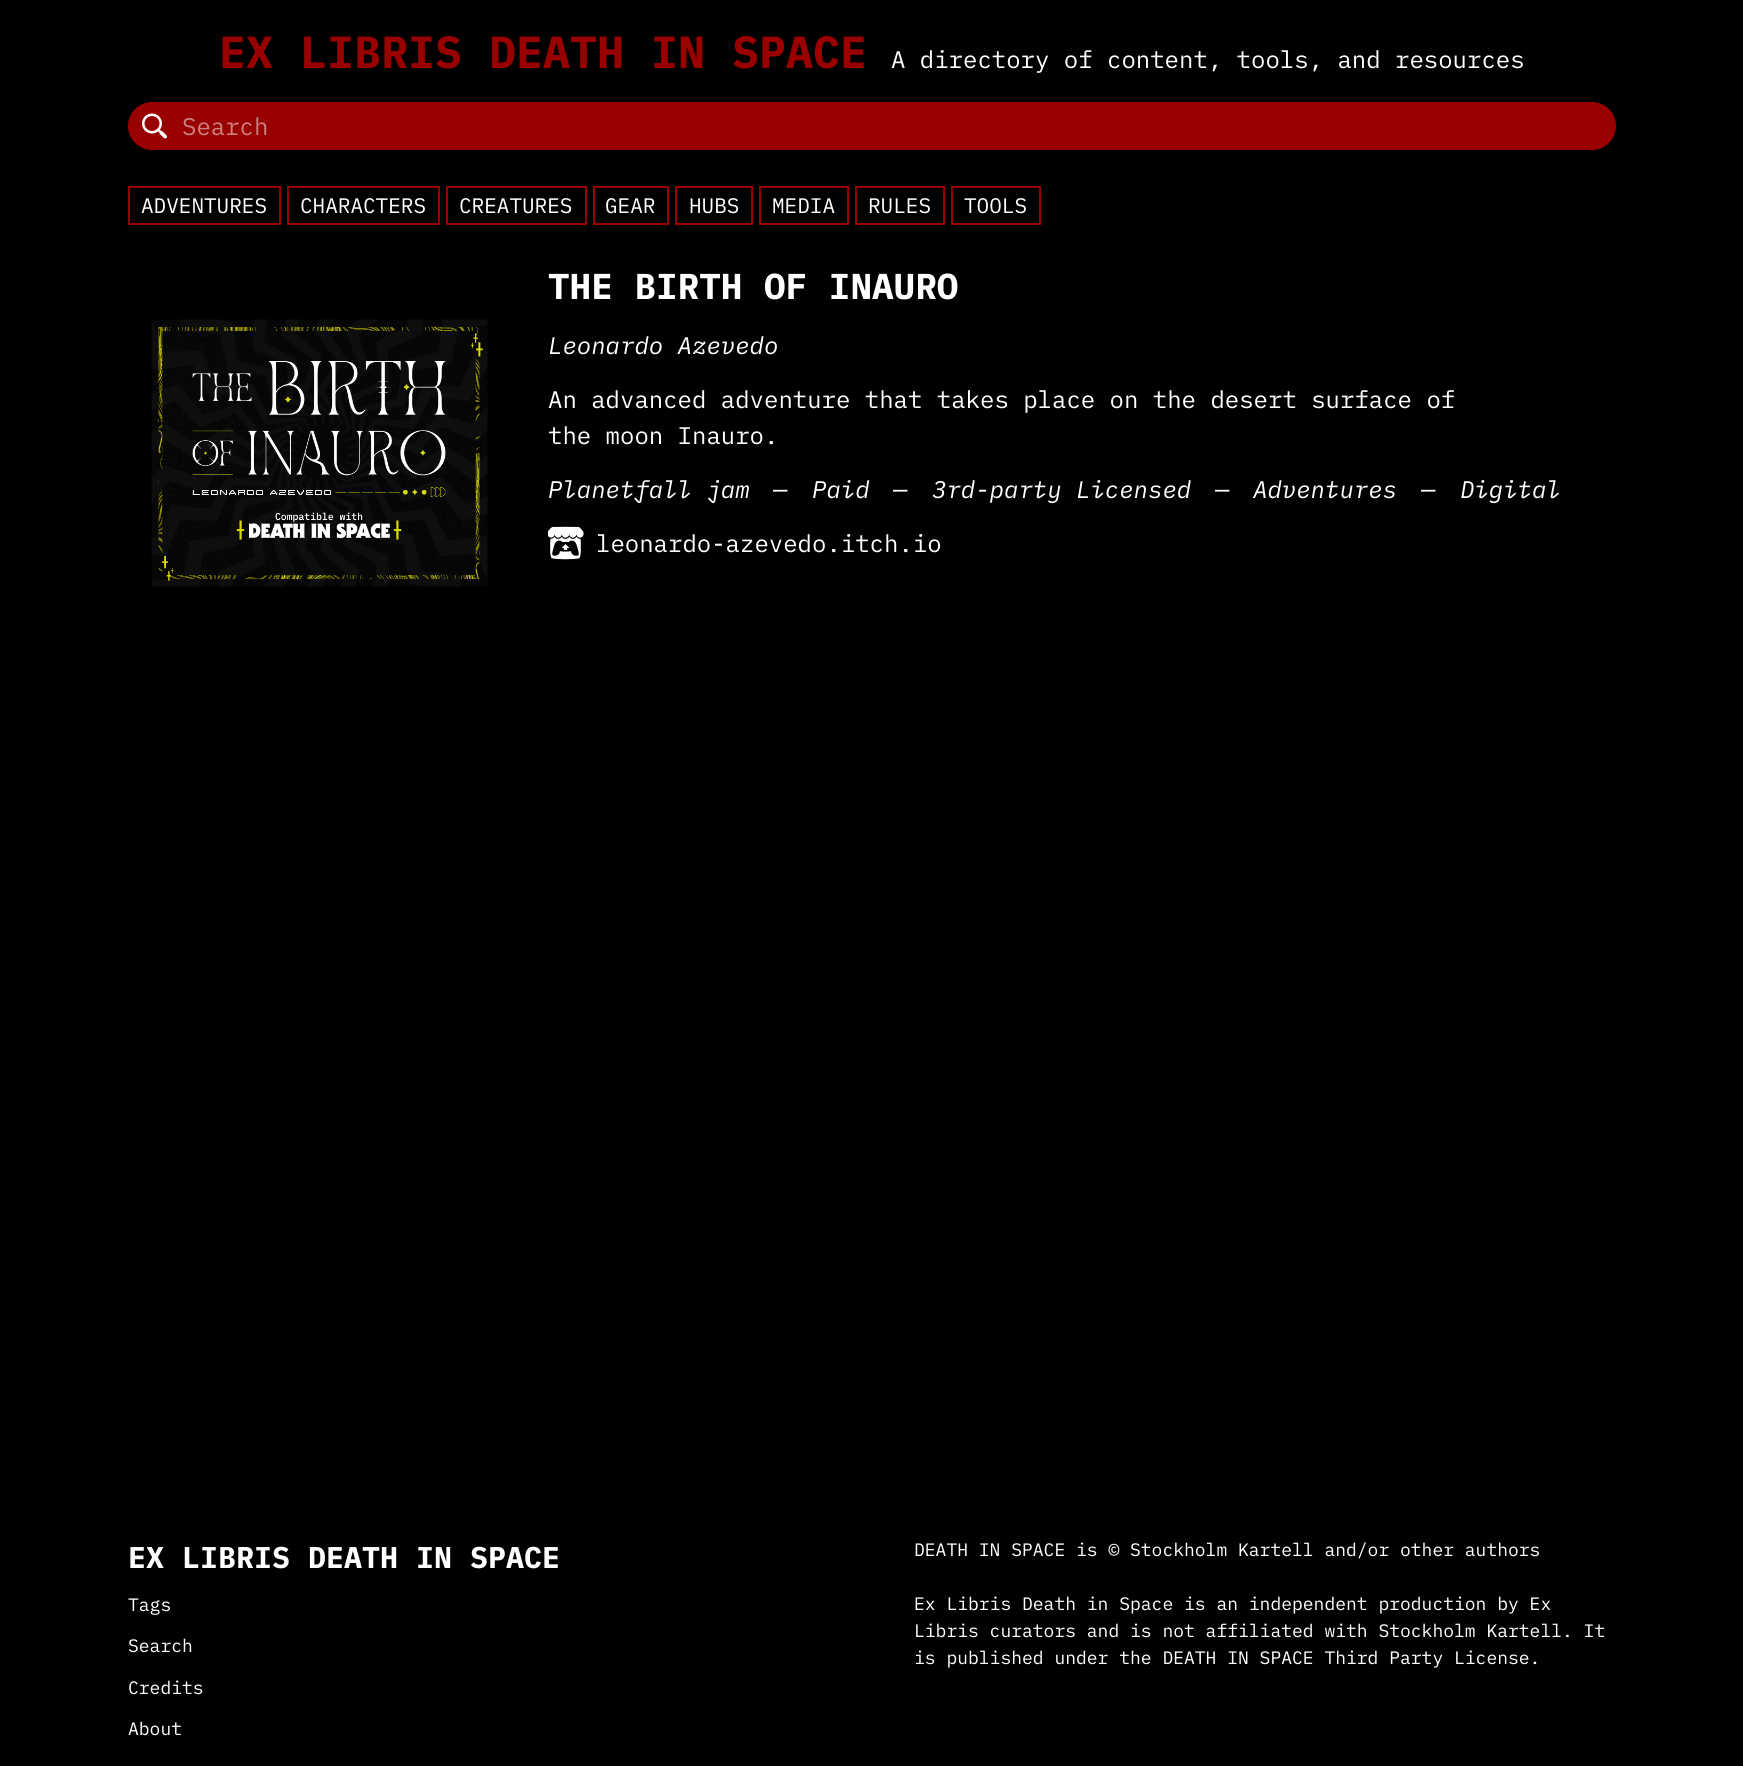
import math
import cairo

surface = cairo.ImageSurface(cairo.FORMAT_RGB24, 1743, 1766)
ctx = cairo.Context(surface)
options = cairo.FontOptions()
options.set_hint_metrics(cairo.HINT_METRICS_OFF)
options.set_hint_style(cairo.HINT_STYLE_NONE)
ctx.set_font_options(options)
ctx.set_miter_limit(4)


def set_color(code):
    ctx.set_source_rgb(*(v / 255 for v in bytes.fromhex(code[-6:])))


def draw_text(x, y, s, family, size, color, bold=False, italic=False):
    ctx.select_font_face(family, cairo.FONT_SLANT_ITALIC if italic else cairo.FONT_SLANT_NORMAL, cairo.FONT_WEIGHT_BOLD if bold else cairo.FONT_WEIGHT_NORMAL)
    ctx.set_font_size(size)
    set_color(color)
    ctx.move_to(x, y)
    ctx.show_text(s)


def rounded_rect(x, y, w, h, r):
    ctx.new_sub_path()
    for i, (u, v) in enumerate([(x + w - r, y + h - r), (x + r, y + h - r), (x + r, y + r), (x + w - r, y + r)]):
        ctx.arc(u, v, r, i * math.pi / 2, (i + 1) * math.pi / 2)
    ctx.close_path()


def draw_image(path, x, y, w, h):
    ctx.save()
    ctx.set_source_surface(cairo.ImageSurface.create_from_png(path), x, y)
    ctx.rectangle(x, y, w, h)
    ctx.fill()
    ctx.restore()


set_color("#000000")
ctx.paint()
draw_text(219, 68, "EX LIBRIS DEATH IN SPACE", "IBM Plex Mono", 45, "#990000", bold=True)
draw_text(891, 68, "A directory of content, tools, and resources", "IBM Plex Mono", 24, "#ffffff")
set_color("#990000")
rounded_rect(128, 102, 1488, 48, 24)
ctx.fill()
draw_image("assets/img1.png", 142, 113, 25, 26)
draw_text(182, 135, "Search", "IBM Plex Mono", 24, "#cc8080")
ctx.rectangle(129, 187, 151, 37)
set_color("#990000")
ctx.stroke()
draw_text(141, 213, "ADVENTURES", "IBM Plex Mono", 21, "#ffffff")
ctx.rectangle(288, 187, 151, 37)
set_color("#990000")
ctx.stroke()
draw_text(300, 213, "CHARACTERS", "IBM Plex Mono", 21, "#ffffff")
ctx.rectangle(447, 187, 139, 37)
set_color("#990000")
ctx.stroke()
draw_text(459, 213, "CREATURES", "IBM Plex Mono", 21, "#ffffff")
ctx.rectangle(594, 187, 74, 37)
set_color("#990000")
ctx.stroke()
draw_text(605, 213, "GEAR", "IBM Plex Mono", 21, "#ffffff")
ctx.rectangle(676, 187, 76, 37)
set_color("#990000")
ctx.stroke()
draw_text(689, 213, "HUBS", "IBM Plex Mono", 21, "#ffffff")
ctx.rectangle(760, 187, 88, 37)
set_color("#990000")
ctx.stroke()
draw_text(772, 213, "MEDIA", "IBM Plex Mono", 21, "#ffffff")
ctx.rectangle(856, 187, 88, 37)
set_color("#990000")
ctx.stroke()
draw_text(868, 213, "RULES", "IBM Plex Mono", 21, "#ffffff")
ctx.rectangle(952, 187, 88, 37)
set_color("#990000")
ctx.stroke()
draw_text(964, 213, "TOOLS", "IBM Plex Mono", 21, "#ffffff")
draw_image("assets/img2.png", 151, 319, 337, 268)
draw_text(548, 299, "THE BIRTH OF INAURO", "IBM Plex Mono", 36, "#ffffff", bold=True)
draw_text(548, 354, "Leonardo Azevedo", "IBM Plex Mono", 24, "#ffffff", italic=True)
draw_text(548, 408, "An advanced adventure that takes place on the desert surface of", "IBM Plex Mono", 24, "#ffffff")
draw_text(548, 444, "the moon Inauro.", "IBM Plex Mono", 24, "#ffffff")
draw_text(548, 498, "Planetfall jam", "IBM Plex Mono", 24, "#ffffff", italic=True)
draw_text(773, 498, "—", "IBM Plex Mono", 24, "#ffffff")
draw_text(812, 498, "Paid", "IBM Plex Mono", 24, "#ffffff", italic=True)
draw_text(893, 498, "—", "IBM Plex Mono", 24, "#ffffff")
draw_text(932, 498, "3rd-party Licensed", "IBM Plex Mono", 24, "#ffffff", italic=True)
draw_text(1215, 498, "—", "IBM Plex Mono", 24, "#ffffff")
draw_text(1253, 498, "Adventures", "IBM Plex Mono", 24, "#ffffff", italic=True)
draw_text(1421, 498, "—", "IBM Plex Mono", 24, "#ffffff")
draw_text(1460, 498, "Digital", "IBM Plex Mono", 24, "#ffffff", italic=True)
draw_image("assets/img3.png", 548, 526, 36, 34)
draw_text(596, 552, "leonardo-azevedo.itch.io", "IBM Plex Mono", 24, "#ffffff")
draw_text(128, 1568, "EX LIBRIS DEATH IN SPACE", "IBM Plex Mono", 30, "#ffffff", bold=True)
draw_text(128, 1611, "Tags", "IBM Plex Mono", 18, "#ffffff")
draw_text(128, 1652, "Search", "IBM Plex Mono", 18, "#ffffff")
draw_text(128, 1694, "Credits", "IBM Plex Mono", 18, "#ffffff")
draw_text(128, 1735, "About", "IBM Plex Mono", 18, "#ffffff")
draw_text(914, 1556, "DEATH IN SPACE is © Stockholm Kartell and/or other authors", "IBM Plex Mono", 18, "#ffffff")
draw_text(914, 1610, "Ex Libris Death in Space is an independent production by Ex", "IBM Plex Mono", 18, "#ffffff")
draw_text(914, 1637, "Libris curators and is not affiliated with Stockholm Kartell. It", "IBM Plex Mono", 18, "#ffffff")
draw_text(914, 1664, "is published under the DEATH IN SPACE Third Party License.", "IBM Plex Mono", 18, "#ffffff")
surface.write_to_png("output.png")
